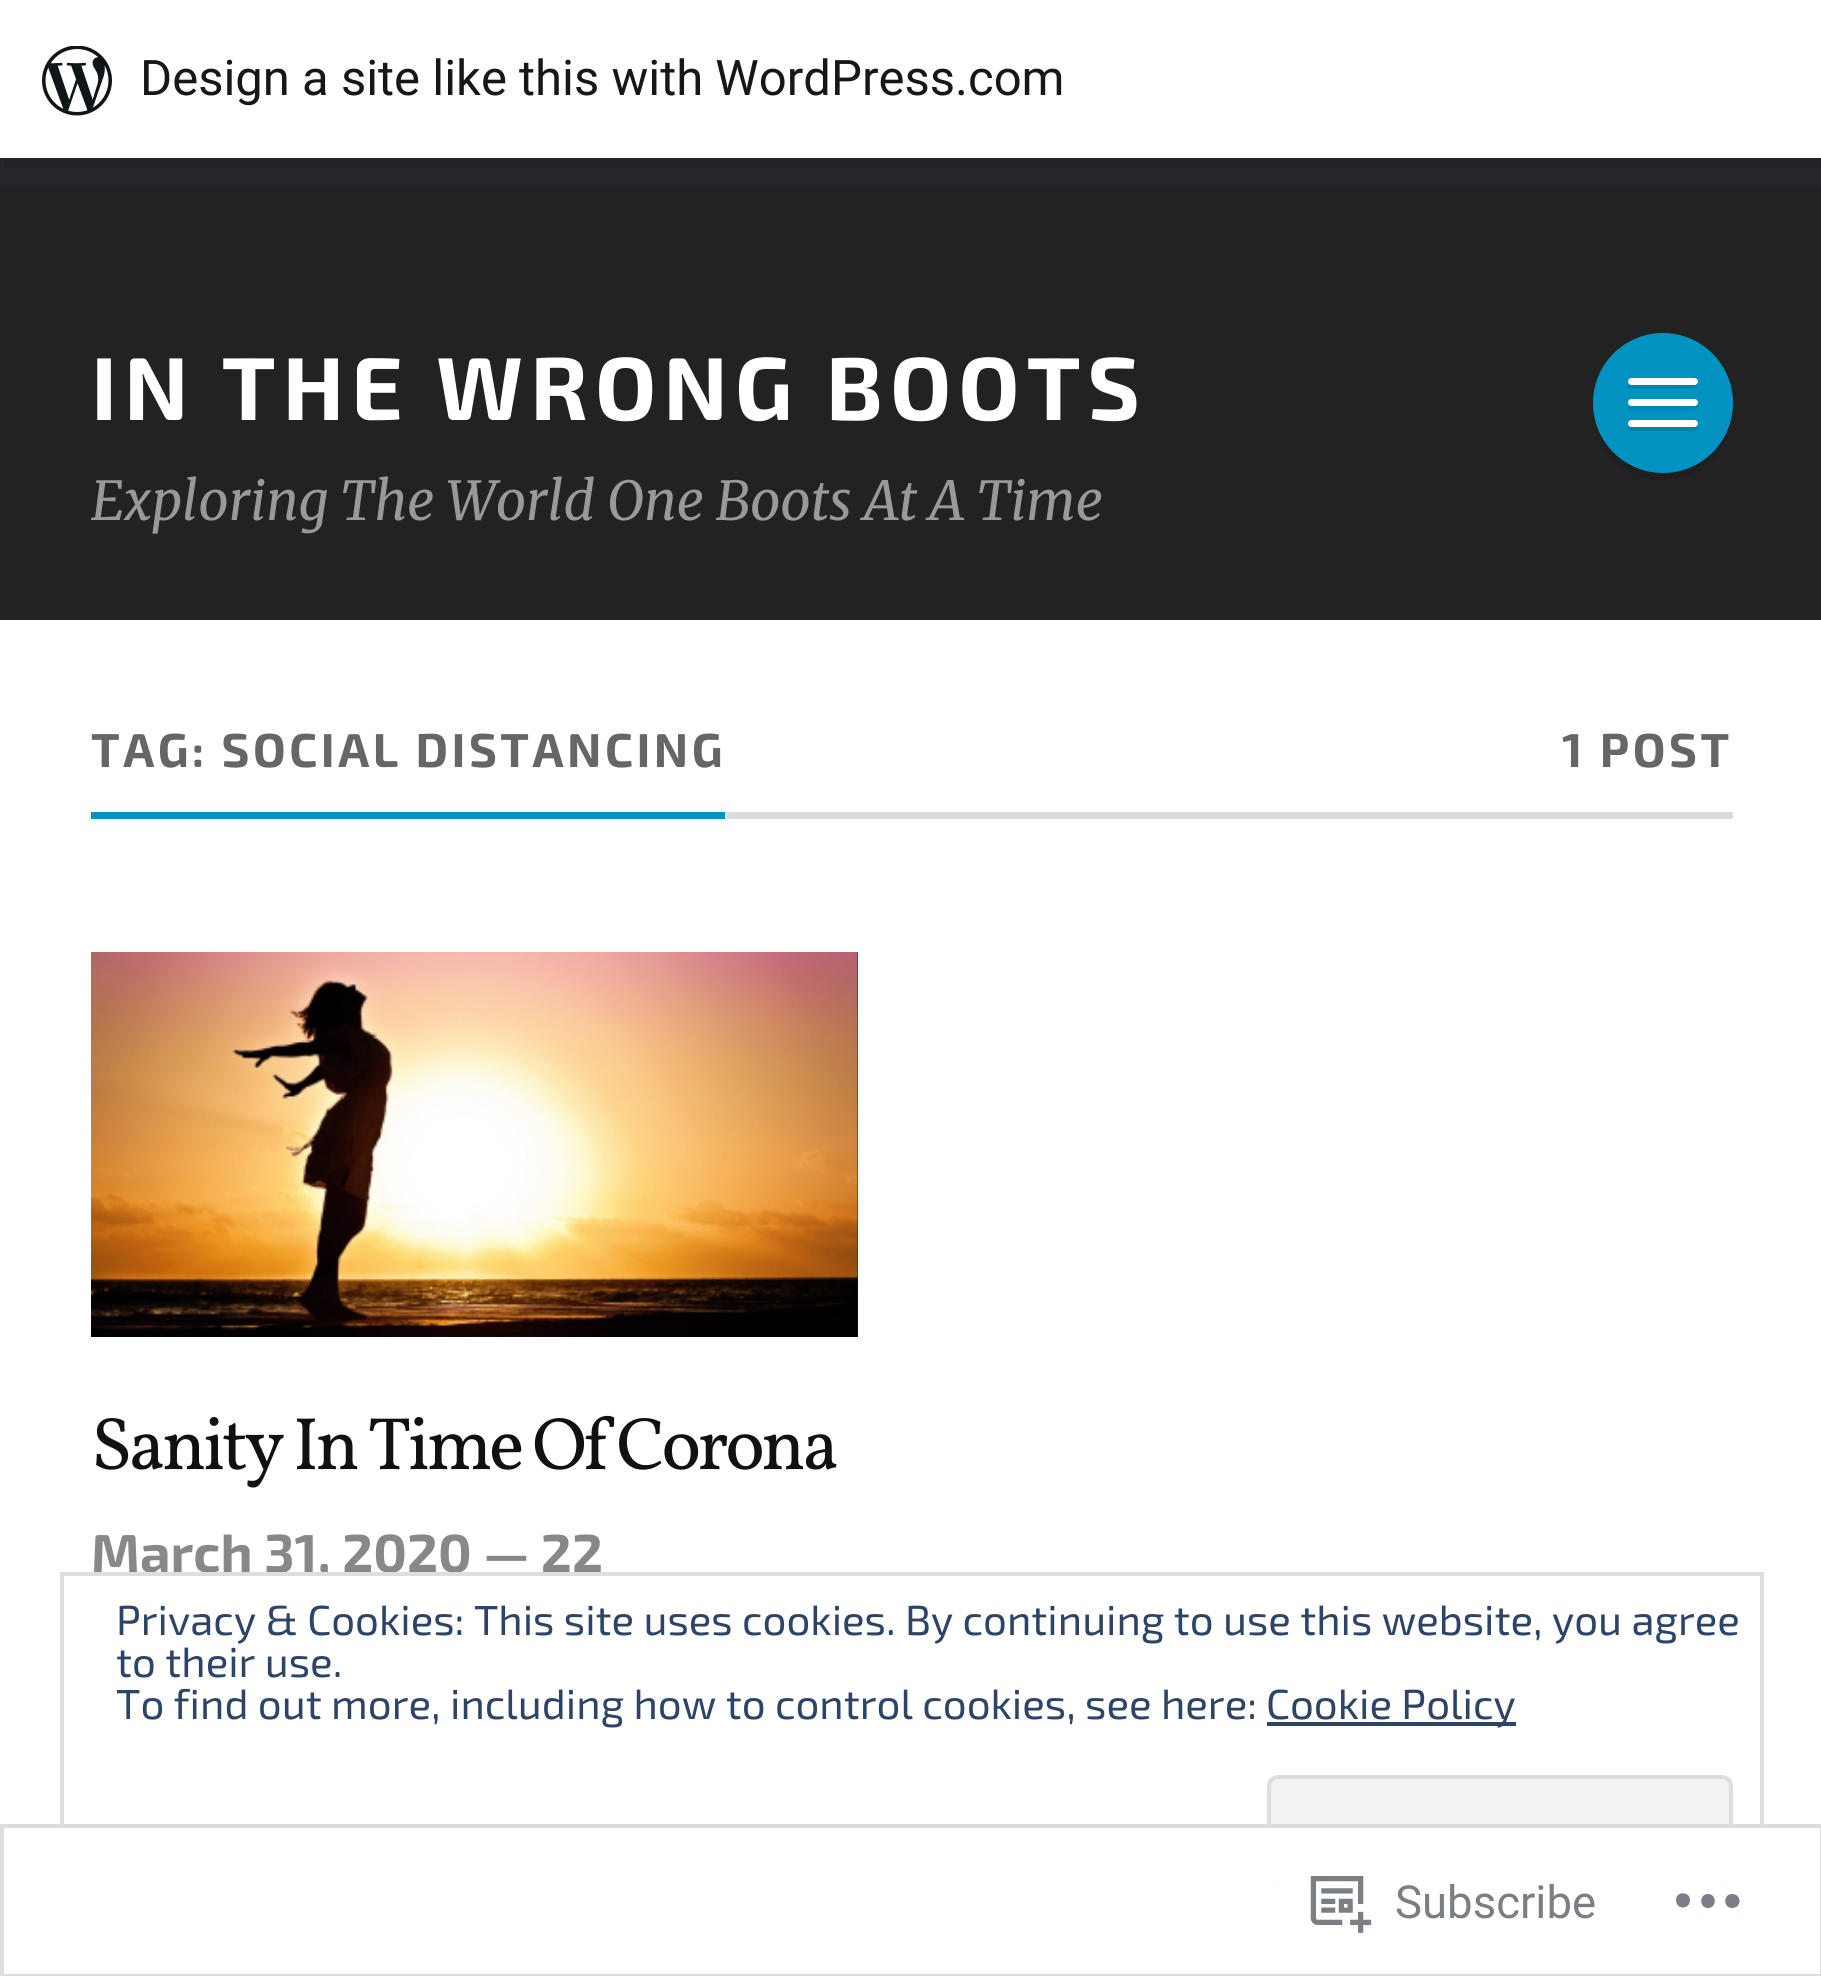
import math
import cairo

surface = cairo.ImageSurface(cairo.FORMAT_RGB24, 1821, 1976)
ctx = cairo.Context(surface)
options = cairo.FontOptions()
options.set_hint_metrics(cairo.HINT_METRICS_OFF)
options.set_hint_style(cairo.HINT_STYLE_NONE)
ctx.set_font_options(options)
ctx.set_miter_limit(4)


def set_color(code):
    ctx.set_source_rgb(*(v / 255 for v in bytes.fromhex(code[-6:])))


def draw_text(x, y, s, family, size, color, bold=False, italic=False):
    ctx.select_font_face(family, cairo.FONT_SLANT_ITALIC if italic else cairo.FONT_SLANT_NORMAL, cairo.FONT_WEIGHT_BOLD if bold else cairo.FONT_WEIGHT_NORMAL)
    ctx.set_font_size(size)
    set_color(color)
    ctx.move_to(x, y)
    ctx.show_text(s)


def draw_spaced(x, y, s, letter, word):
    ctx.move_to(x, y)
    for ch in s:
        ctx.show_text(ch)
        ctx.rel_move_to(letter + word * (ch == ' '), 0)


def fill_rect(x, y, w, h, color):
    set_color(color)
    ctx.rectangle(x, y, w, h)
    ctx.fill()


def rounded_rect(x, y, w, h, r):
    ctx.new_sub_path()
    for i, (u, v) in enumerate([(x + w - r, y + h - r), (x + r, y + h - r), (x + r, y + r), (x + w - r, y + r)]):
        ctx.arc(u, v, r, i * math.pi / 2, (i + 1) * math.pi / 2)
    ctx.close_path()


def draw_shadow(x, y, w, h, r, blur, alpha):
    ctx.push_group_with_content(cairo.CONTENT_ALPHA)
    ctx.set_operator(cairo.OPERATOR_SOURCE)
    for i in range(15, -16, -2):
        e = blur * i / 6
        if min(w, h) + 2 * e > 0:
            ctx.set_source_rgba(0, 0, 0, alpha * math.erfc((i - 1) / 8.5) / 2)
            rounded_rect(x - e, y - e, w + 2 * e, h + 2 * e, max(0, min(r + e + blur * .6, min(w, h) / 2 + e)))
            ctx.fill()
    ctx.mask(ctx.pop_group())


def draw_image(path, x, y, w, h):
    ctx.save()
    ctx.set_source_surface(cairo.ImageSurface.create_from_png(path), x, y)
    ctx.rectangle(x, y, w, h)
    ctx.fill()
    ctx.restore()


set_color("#ffffff")
ctx.paint()
fill_rect(0, 158, 1821, 28, "#26272b")
set_color("#000000")
draw_shadow(0, 4, 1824, 157, 0, 3.5, 0.05)
set_color("#222327")
ctx.new_path()
ctx.move_to(4, 158)
ctx.line_to(4, 168)
ctx.line_to(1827, 168)
ctx.line_to(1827, 11)
ctx.line_to(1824, 11)
ctx.line_to(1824, 158)
ctx.close_path()
ctx.fill()
fill_rect(0, 1, 1821, 157, "#ffffff")
draw_image("assets/img1.png", 42, 46, 70, 70)
draw_text(140, 95, "Design a site like this with WordPress.com", "Roboto", 49, "#171717")
fill_rect(0, 186, 1821, 434, "#222222")
ctx.select_font_face("Exo 2", cairo.FONT_SLANT_NORMAL, cairo.FONT_WEIGHT_BOLD)
ctx.set_font_size(89.25)
set_color("#ffffff")
draw_spaced(91, 420, "IN THE WRONG BOOTS", 7, 0)
set_color("#1f1f1f")
ctx.new_path()
ctx.move_to(1593, 411)
ctx.curve_to(1594, 449, 1625, 480, 1663, 480)
ctx.curve_to(1702, 480, 1733, 449, 1733, 410)
ctx.line_to(1732, 402)
ctx.curve_to(1733, 416, 1729, 430, 1721, 442)
ctx.curve_to(1684, 495, 1601, 475, 1593, 411)
ctx.close_path()
ctx.fill()
set_color("#0093c2")
ctx.arc(1663, 403, 70, 0, 2 * math.pi)
ctx.fill()
set_color("#0084af")
ctx.new_path()
ctx.move_to(1628, 384)
ctx.curve_to(1625, 390, 1635, 389, 1642, 389)
ctx.line_to(1694, 389)
ctx.curve_to(1697, 389, 1699, 385, 1697, 383)
ctx.curve_to(1697, 384, 1695, 385, 1694, 385)
ctx.line_to(1631, 385)
ctx.curve_to(1630, 385, 1629, 385, 1628, 384)
ctx.close_path()
ctx.fill()
set_color("#ffffff")
rounded_rect(1628, 378, 70, 7, 3.5)
ctx.fill()
set_color("#0084af")
ctx.new_path()
ctx.move_to(1628, 405)
ctx.curve_to(1625, 411, 1635, 410, 1642, 410)
ctx.line_to(1694, 410)
ctx.curve_to(1697, 410, 1699, 406, 1697, 404)
ctx.curve_to(1697, 405, 1695, 406, 1694, 406)
ctx.line_to(1631, 406)
ctx.curve_to(1630, 406, 1629, 406, 1628, 405)
ctx.close_path()
ctx.fill()
set_color("#ffffff")
rounded_rect(1628, 399, 70, 7, 3.5)
ctx.fill()
set_color("#0084af")
ctx.new_path()
ctx.move_to(1628, 426)
ctx.curve_to(1625, 432, 1635, 431, 1642, 431)
ctx.line_to(1694, 431)
ctx.curve_to(1697, 431, 1699, 427, 1697, 425)
ctx.curve_to(1697, 426, 1695, 427, 1694, 427)
ctx.line_to(1631, 427)
ctx.curve_to(1630, 427, 1629, 427, 1628, 426)
ctx.close_path()
ctx.fill()
set_color("#ffffff")
rounded_rect(1628, 420, 70, 7, 3.5)
ctx.fill()
draw_text(91, 520, "Exploring The World One Boots At A Time", "Merriweather Light", 53.5, "#999999", italic=True)
fill_rect(725, 812, 1008, 7, "#dddddd")
fill_rect(91, 812, 634, 7, "#0093c2")
ctx.select_font_face("Exo 2", cairo.FONT_SLANT_NORMAL, cairo.FONT_WEIGHT_BOLD)
ctx.set_font_size(47.6)
set_color("#666666")
draw_spaced(91, 767, "TAG: SOCIAL DISTANCING", 3.5, 0)
draw_spaced(1562, 767, "1 POST", 3.5, 0)
fill_rect(857, 952, 1, 385, "#222222")
draw_image("assets/img2.png", 91, 952, 767, 385)
ctx.select_font_face("Vollkorn")
ctx.set_font_size(74.4)
set_color("#111111")
draw_spaced(91, 1469, "Sanity In Time Of Corona", -3.5, 0)
draw_text(91, 1572, "March 31, 2020 — 22", "Exo 2", 53.5, "#888888", bold=True)
fill_rect(322, 1576, 6, 4, "#ffffff")
ctx.rectangle(62, 1574, 1700, 342)
set_color("#dedede")
ctx.set_line_width(4)
ctx.stroke()
draw_text(116, 1635, "Privacy & Cookies: This site uses cookies. By continuing to use this website, you agree", "Exo 2", 42, "#2e4467")
draw_text(116, 1677, "to their use.", "Exo 2", 42, "#2e4467")
draw_text(116, 1719, "To find out more, including how to control cookies, see here:", "Exo 2", 42, "#2e4467")
fill_rect(1267, 1722, 249, 4, "#2e4467")
draw_text(1266, 1719, "Cookie Policy", "Exo 2", 42, "#2e4467")
set_color("#f3f3f3")
rounded_rect(1269, 1777, 462, 108, 9)
ctx.fill_preserve()
set_color("#dedede")
ctx.stroke()
ctx.set_source_rgba(1, 1, 1, 0.98)
ctx.rectangle(60, 1824, 1704, 94)
ctx.fill()
ctx.rectangle(2, 1826, 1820, 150)
ctx.set_source_rgba(0.863, 0.863, 0.871, 0.98)
ctx.stroke()
draw_image("assets/img3.png", 1310, 1876, 62, 57)
draw_text(1395, 1918, "Subscribe", "Roboto", 45.5, "#7b7f84")
set_color("#7b7f85")
ctx.new_path()
ctx.move_to(1690, 1900)
ctx.curve_to(1690, 1910, 1676, 1910, 1676, 1900)
ctx.curve_to(1676, 1891, 1690, 1891, 1690, 1900)
ctx.close_path()
ctx.move_to(1732, 1894)
ctx.curve_to(1723, 1894, 1723, 1908, 1732, 1908)
ctx.curve_to(1742, 1908, 1742, 1894, 1732, 1894)
ctx.close_path()
ctx.move_to(1708, 1894)
ctx.curve_to(1699, 1894, 1699, 1908, 1708, 1908)
ctx.curve_to(1717, 1908, 1717, 1894, 1708, 1894)
ctx.close_path()
ctx.fill()
surface.write_to_png("output.png")
